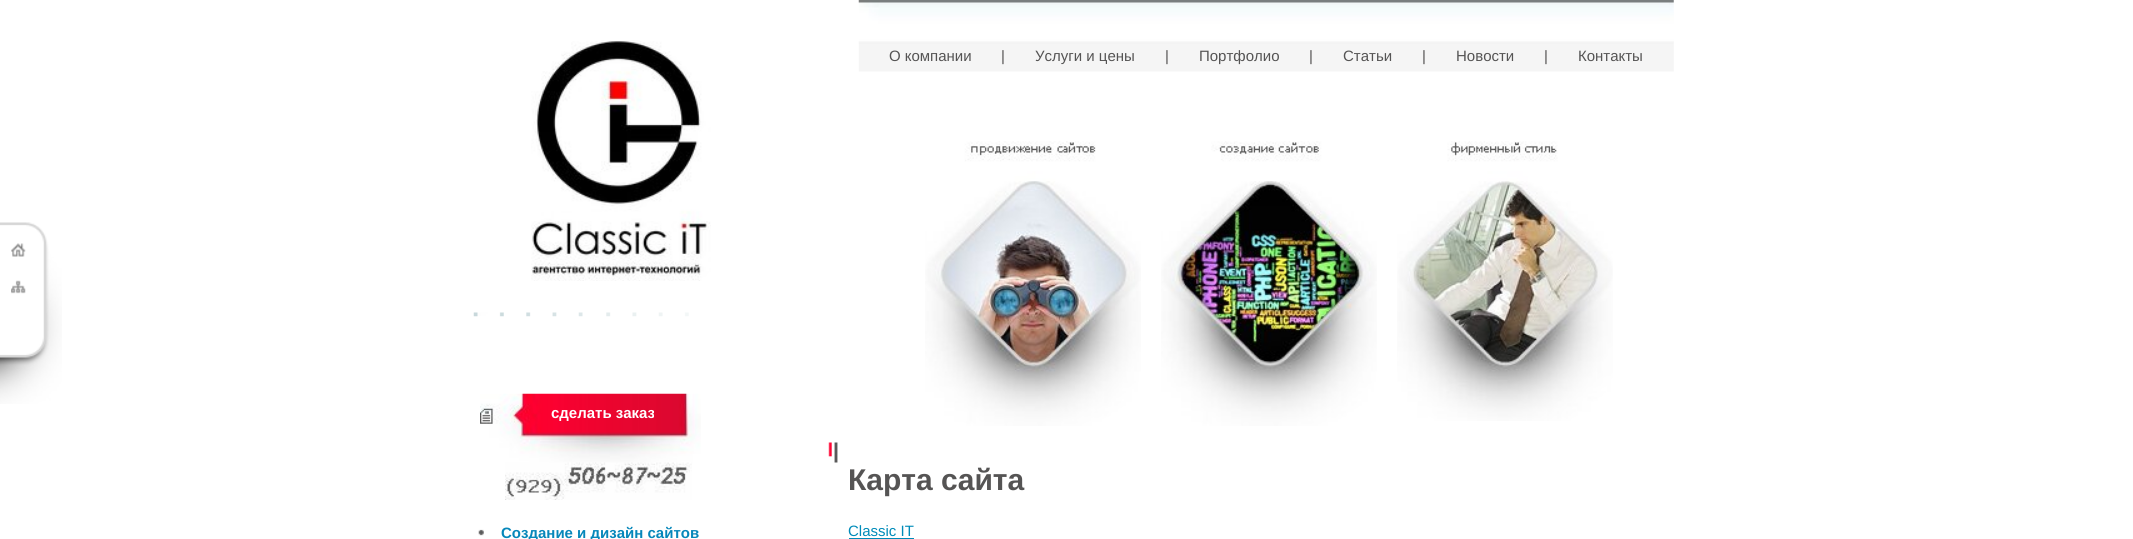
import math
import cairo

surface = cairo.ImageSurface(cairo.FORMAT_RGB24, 2133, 539)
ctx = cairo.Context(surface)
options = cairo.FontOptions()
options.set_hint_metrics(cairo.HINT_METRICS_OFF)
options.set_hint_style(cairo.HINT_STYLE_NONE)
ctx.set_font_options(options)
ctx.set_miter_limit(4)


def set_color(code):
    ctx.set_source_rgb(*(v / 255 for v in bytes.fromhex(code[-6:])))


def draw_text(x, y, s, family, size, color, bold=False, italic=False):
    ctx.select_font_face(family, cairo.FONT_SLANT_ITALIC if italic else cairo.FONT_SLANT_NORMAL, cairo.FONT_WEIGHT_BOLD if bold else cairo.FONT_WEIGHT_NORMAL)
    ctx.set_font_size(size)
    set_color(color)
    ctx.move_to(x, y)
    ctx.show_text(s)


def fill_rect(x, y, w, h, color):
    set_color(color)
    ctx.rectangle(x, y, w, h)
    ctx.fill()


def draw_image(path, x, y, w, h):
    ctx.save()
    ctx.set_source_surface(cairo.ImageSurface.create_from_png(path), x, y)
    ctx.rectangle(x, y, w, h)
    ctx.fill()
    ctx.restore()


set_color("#ffffff")
ctx.paint()
draw_image("assets/img1.png", 0, 222, 62, 182)
draw_image("assets/img2.png", 11, 243, 15, 14)
draw_image("assets/img3.png", 11, 280, 15, 14)
draw_image("assets/img4.png", 473, 312, 216, 5)
draw_image("assets/img5.png", 531, 40, 180, 241)
draw_image("assets/img6.png", 858, 0, 816, 72)
draw_text(889, 61, "О компании", "Liberation Sans", 15, "#555454")
draw_text(1001, 61, "|", "Liberation Sans", 15, "#555454")
draw_text(1035, 61, "Услуги и цены", "Liberation Sans", 15, "#555454")
draw_text(1165, 61, "|", "Liberation Sans", 15, "#555454")
draw_text(1199, 61, "Портфолио", "Liberation Sans", 15, "#555454")
draw_text(1309, 61, "|", "Liberation Sans", 15, "#555454")
draw_text(1343, 61, "Статьи", "Liberation Sans", 15, "#555454")
draw_text(1422, 61, "|", "Liberation Sans", 15, "#555454")
draw_text(1456, 61, "Новости", "Liberation Sans", 15, "#555454")
draw_text(1544, 61, "|", "Liberation Sans", 15, "#555454")
draw_text(1578, 61, "Контакты", "Liberation Sans", 15, "#555454")
draw_image("assets/img7.png", 925, 141, 216, 285)
draw_image("assets/img8.png", 1161, 141, 216, 285)
draw_image("assets/img9.png", 1397, 141, 216, 280)
draw_image("assets/img10.png", 480, 393, 221, 71)
draw_text(551, 418, "сделать заказ", "Liberation Sans", 15, "#ffffff", bold=True)
draw_image("assets/img11.png", 505, 462, 187, 38)
draw_image("assets/img12.png", 478, 529, 6, 7)
draw_text(501, 538, "Создание и дизайн сайтов", "Liberation Sans", 15, "#0687ba", bold=True)
draw_image("assets/img13.png", 828, 442, 10, 21)
draw_text(848, 490, "Карта сайта", "Liberation Sans", 30, "#555454", bold=True)
draw_text(848, 536, "Classic IT", "Liberation Sans", 15, "#008bb9")
fill_rect(849, 538, 65, 1, "#008bb9")
surface.write_to_png("output.png")
